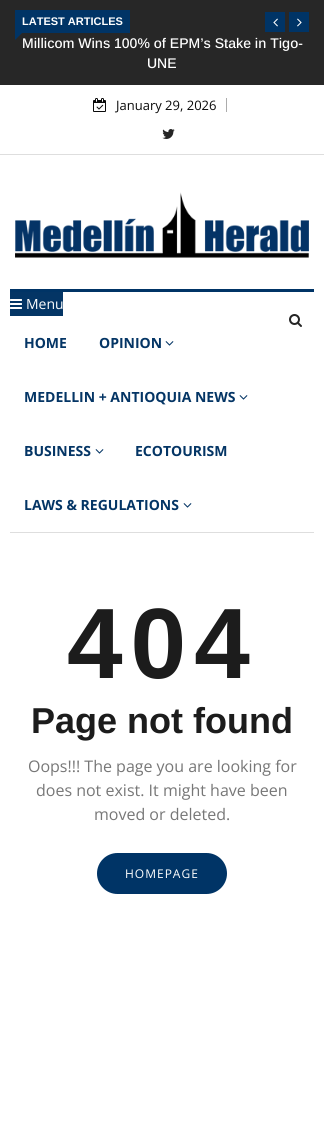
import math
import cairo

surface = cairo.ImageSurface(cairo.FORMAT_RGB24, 324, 1146)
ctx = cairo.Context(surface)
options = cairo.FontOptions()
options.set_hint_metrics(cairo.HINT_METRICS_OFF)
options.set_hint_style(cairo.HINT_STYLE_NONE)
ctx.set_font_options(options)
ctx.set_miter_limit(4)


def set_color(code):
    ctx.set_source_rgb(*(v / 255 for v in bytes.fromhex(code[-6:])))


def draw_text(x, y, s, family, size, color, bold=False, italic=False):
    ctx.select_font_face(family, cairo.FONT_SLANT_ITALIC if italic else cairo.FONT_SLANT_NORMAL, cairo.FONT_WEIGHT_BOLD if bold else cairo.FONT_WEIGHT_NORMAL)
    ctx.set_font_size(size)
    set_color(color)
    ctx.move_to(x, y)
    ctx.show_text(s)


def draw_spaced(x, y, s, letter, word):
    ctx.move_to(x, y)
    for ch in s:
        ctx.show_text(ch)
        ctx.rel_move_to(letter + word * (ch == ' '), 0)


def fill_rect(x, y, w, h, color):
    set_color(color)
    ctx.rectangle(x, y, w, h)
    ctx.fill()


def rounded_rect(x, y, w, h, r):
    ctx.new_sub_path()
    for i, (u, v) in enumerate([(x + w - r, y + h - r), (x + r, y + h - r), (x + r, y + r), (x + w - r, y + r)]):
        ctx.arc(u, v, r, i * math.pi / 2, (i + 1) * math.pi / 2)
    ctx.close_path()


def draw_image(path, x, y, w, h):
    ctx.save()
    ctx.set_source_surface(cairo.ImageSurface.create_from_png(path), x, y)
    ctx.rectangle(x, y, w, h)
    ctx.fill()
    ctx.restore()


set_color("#ffffff")
ctx.paint()
fill_rect(0, 0, 324, 85, "#272727")
fill_rect(15, 10, 115, 23, "#003466")
draw_text(22, 25, "LATEST ARTICLES", "Arimo", 11, "#ffffff", bold=True)
set_color("#003466")
ctx.new_path()
ctx.move_to(15, 33)
ctx.line_to(22, 33)
ctx.line_to(15, 40)
ctx.close_path()
ctx.fill()
fill_rect(265, 12, 20, 20, "#003466")
draw_image("assets/img1.png", 273, 18, 5, 9)
fill_rect(289, 12, 20, 20, "#003466")
draw_image("assets/img2.png", 297, 18, 5, 9)
draw_text(22, 48, "Millicom Wins 100% of EPM’s Stake in Tigo-", "Arimo Medium", 14, "#ffffff")
draw_text(147, 68, "UNE", "Arimo Medium", 14, "#ffffff")
fill_rect(0, 154, 324, 1, "#dedede")
fill_rect(226, 98, 1, 14, "#acacac")
draw_image("assets/img3.png", 93, 98, 13, 14)
draw_text(116, 110, "January 29, 2026", "Open Sans", 13, "#0a0a0a")
draw_image("assets/img4.png", 162, 129, 13, 10)
draw_image("assets/img5.png", 15, 192, 294, 66)
fill_rect(10, 289, 304, 3, "#003466")
fill_rect(10, 532, 304, 1, "#dedede")
fill_rect(10, 292, 53, 24, "#043565")
draw_image("assets/img6.png", 10, 299, 12, 10)
draw_text(26, 309, "Menu", "Open Sans", 14, "#ffffff")
draw_text(24, 348, "HOME", "Open Sans", 14, "#043565", bold=True)
draw_text(99, 348, "OPINION", "Open Sans", 14, "#043565", bold=True)
draw_image("assets/img7.png", 165, 341, 9, 5)
draw_text(24, 402, "MEDELLIN + ANTIOQUIA NEWS", "Open Sans", 14, "#043565", bold=True)
draw_image("assets/img7.png", 239, 395, 9, 5)
draw_text(24, 456, "BUSINESS", "Open Sans", 14, "#043565", bold=True)
draw_image("assets/img7.png", 95, 449, 9, 5)
draw_text(135, 456, "ECOTOURISM", "Open Sans", 14, "#043565", bold=True)
draw_text(24, 510, "LAWS & REGULATIONS", "Open Sans", 14, "#043565", bold=True)
draw_image("assets/img7.png", 183, 503, 9, 5)
draw_image("assets/img8.png", 289, 314, 13, 13)
ctx.select_font_face("Arimo", cairo.FONT_SLANT_NORMAL, cairo.FONT_WEIGHT_BOLD)
ctx.set_font_size(100)
set_color("#1c1c1c")
draw_spaced(67, 678, "404", 8, 0)
draw_text(31, 733, "Page not found", "Arimo", 36, "#1c1c1c", bold=True)
draw_text(28, 772, "Oops!!! The page you are looking for", "Open Sans", 16, "#777777")
draw_text(36, 796, "does not exist. It might have been", "Open Sans", 16, "#777777")
draw_text(94, 820, "moved or deleted.", "Open Sans", 16, "#777777")
set_color("#003466")
rounded_rect(97, 853, 130, 41, 20.5)
ctx.fill()
ctx.set_font_size(12)
set_color("#ffffff")
draw_spaced(125, 878, "HOMEPAGE", 1, 0)
surface.write_to_png("output.png")
